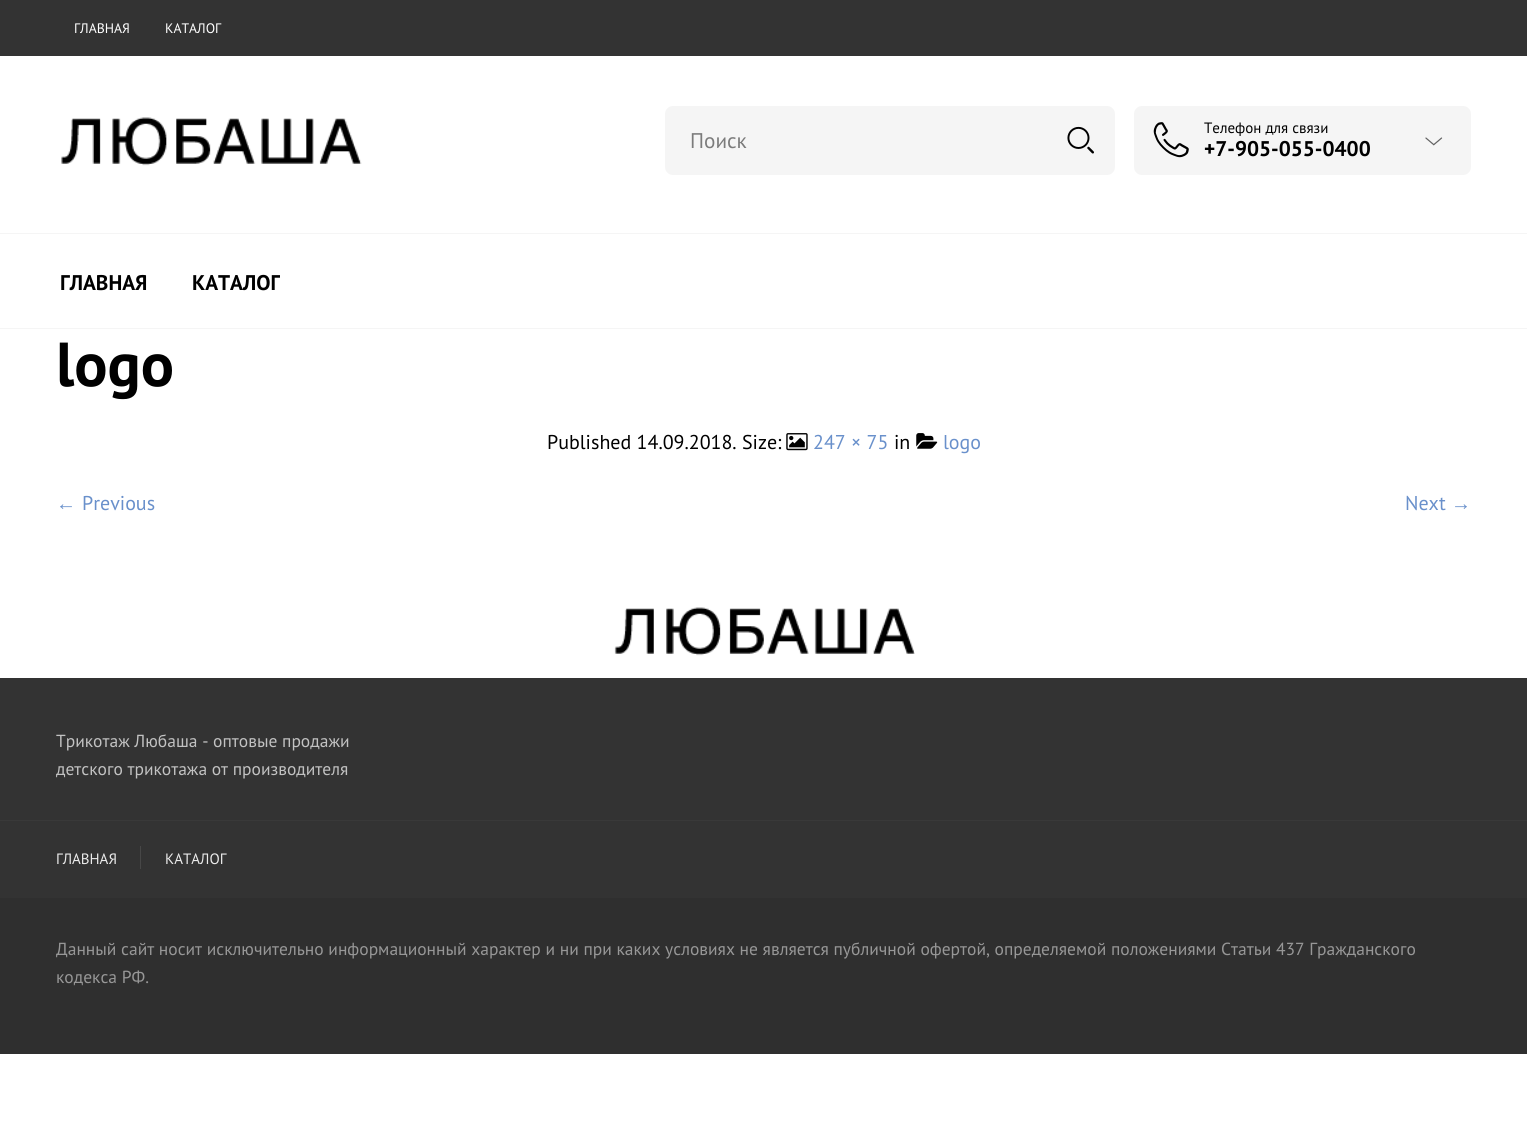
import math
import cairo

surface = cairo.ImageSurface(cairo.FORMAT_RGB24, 1527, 1146)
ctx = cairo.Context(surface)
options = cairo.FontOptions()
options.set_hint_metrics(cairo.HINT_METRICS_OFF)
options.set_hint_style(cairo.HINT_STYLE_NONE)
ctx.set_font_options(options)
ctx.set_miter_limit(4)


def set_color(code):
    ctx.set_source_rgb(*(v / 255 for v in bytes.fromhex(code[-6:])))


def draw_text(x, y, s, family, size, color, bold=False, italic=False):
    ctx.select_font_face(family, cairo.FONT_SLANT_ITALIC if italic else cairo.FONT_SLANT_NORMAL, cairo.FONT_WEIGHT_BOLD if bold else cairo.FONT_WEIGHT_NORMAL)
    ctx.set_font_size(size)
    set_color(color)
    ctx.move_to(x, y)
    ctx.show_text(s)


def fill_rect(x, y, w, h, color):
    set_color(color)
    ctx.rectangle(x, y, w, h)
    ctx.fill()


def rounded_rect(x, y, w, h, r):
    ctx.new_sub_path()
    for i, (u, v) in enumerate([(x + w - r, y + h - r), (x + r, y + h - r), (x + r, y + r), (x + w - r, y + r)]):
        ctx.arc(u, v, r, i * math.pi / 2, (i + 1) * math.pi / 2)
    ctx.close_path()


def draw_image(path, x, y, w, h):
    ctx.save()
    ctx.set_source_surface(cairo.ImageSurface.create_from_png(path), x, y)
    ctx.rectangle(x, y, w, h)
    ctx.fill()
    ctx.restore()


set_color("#ffffff")
ctx.paint()
fill_rect(0, 0, 1527, 56, "#333333")
draw_text(74, 33, "ГЛАВНАЯ", "PT Sans", 13.75, "#ffffff")
draw_text(165, 33, "КАТАЛОГ", "PT Sans", 13.75, "#ffffff")
draw_image("assets/img1.png", 61, 117, 301, 49)
set_color("#f5f5f5")
rounded_rect(665, 106, 450, 69, 8)
ctx.fill()
draw_text(690, 148, "Поиск", "PT Sans", 21.25, "#7b7b7b")
draw_image("assets/img2.png", 1067, 126, 27, 28)
set_color("#f5f5f5")
rounded_rect(1134, 106, 337, 69, 8)
ctx.fill()
draw_image("assets/img3.png", 1153, 122, 36, 36)
draw_text(1204, 133, "Телефон для связи", "PT Sans", 15, "#000000")
draw_text(1204, 156, "+7-905-055-0400", "PT Sans", 21.25, "#000000", bold=True)
draw_image("assets/img4.png", 1425, 137, 18, 9)
fill_rect(0, 233, 1527, 1, "#f5f5f5")
fill_rect(0, 328, 1527, 1, "#f5f5f5")
draw_text(60, 290, "ГЛАВНАЯ", "PT Sans", 21.25, "#000000", bold=True)
draw_text(192, 290, "КАТАЛОГ", "PT Sans", 21.25, "#000000", bold=True)
draw_text(56, 386, "logo", "PT Sans", 62, "#000000", bold=True)
draw_text(547, 449, "Published 14.09.2018. Size:", "PT Sans", 20, "#000000")
draw_image("assets/img5.png", 786, 433, 22, 18)
draw_text(813, 449, "247 × 75", "PT Sans", 20, "#6990cb")
draw_text(894, 449, "in", "PT Sans", 20, "#000000")
draw_image("assets/img6.png", 916, 433, 22, 16)
draw_text(943, 449, "logo", "PT Sans", 20, "#6990cb")
draw_text(56, 510, "←", "Liberation Sans", 20, "#6990cb")
draw_text(82, 510, "Previous", "PT Sans", 20, "#6990cb")
draw_text(1405, 510, "Next", "PT Sans", 20, "#6990cb")
draw_text(1451, 510, "→", "Liberation Sans", 20, "#6990cb")
draw_image("assets/img7.png", 614, 607, 301, 49)
fill_rect(0, 678, 1527, 220, "#333333")
draw_text(56, 747, "Трикотаж Любаша - оптовые продажи", "PT Sans", 17.5, "#c2c2c2")
draw_text(56, 775, "детского трикотажа от производителя", "PT Sans", 17.5, "#c2c2c2")
fill_rect(0, 820, 1527, 1, "#393939")
fill_rect(140, 846, 1, 23, "#474747")
draw_text(56, 864, "ГЛАВНАЯ", "PT Sans", 15, "#ebebeb")
draw_text(165, 864, "КАТАЛОГ", "PT Sans", 15, "#ebebeb")
fill_rect(0, 898, 1527, 156, "#2f2f2f")
draw_text(56, 955, "Данный сайт носит исключительно информационный характер и ни при каких условиях не является публичной офертой, определяемой положениями Статьи 437 Гражданского", "PT Sans", 17.5, "#979797")
draw_text(56, 983, "кодекса РФ.", "PT Sans", 17.5, "#979797")
surface.write_to_png("output.png")
